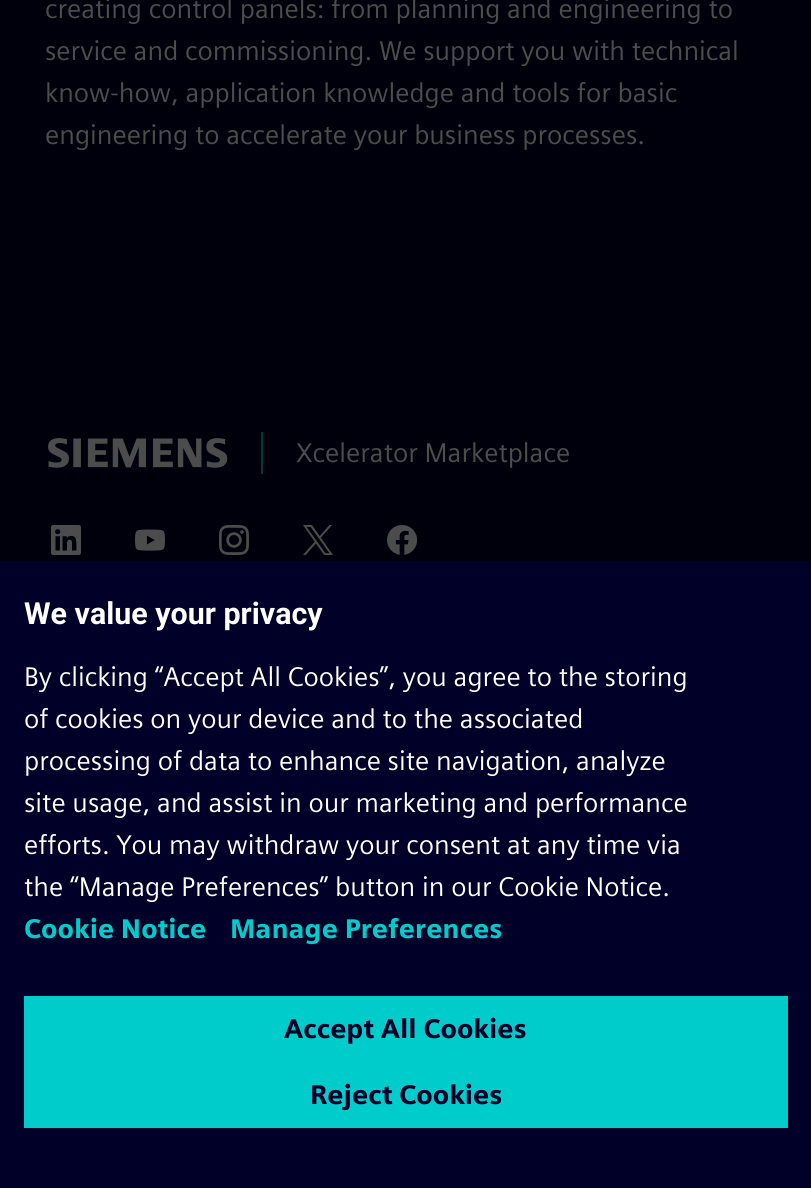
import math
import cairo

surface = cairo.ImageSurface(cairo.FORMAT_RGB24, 811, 1188)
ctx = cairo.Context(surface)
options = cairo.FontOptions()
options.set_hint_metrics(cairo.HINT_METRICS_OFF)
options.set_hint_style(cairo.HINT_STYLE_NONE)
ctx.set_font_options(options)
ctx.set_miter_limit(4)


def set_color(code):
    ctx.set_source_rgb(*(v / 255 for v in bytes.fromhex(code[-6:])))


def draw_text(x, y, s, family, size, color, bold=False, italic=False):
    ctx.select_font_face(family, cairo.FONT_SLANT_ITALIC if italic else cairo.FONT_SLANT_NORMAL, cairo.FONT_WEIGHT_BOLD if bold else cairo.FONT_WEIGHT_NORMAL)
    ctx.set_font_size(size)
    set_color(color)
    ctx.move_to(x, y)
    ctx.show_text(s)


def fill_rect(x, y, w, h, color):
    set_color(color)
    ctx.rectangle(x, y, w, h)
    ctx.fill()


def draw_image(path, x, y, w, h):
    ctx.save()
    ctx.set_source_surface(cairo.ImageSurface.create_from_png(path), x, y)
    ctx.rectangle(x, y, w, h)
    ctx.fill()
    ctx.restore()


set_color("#00000c")
ctx.paint()
draw_text(45, 18, "creating control panels: from planning and engineering to", "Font", 27, "#4d4d4d")
draw_text(45, 60, "service and commissioning. We support you with technical", "Font", 27, "#4d4d4d")
draw_text(45, 102, "know-how, application knowledge and tools for basic", "Font", 27, "#4d4d4d")
draw_text(45, 144, "engineering to accelerate your business processes.", "Font", 27, "#4d4d4d")
draw_image("assets/img1.png", 48, 438, 180, 30)
fill_rect(261, 432, 2, 42, "#003942")
draw_text(296, 462, "Xcelerator Marketplace", "Font", 27, "#4d4d4d")
draw_image("assets/img2.png", 51, 525, 30, 30)
draw_image("assets/img3.png", 135, 529, 30, 22)
draw_image("assets/img4.png", 219, 525, 30, 30)
draw_image("assets/img5.png", 303, 525, 30, 30)
draw_image("assets/img6.png", 387, 525, 31, 30)
fill_rect(0, 561, 811, 627, "#000028")
draw_text(24, 624, "We value your privacy", "Roboto", 30.4, "#ffffff", bold=True)
draw_text(24, 686, "By clicking “Accept All Cookies”, you agree to the storing", "Font", 27, "#ffffff")
draw_text(24, 728, "of cookies on your device and to the associated", "Font", 27, "#ffffff")
draw_text(24, 770, "processing of data to enhance site navigation, analyze", "Font", 27, "#ffffff")
draw_text(24, 812, "site usage, and assist in our marketing and performance", "Font", 27, "#ffffff")
draw_text(24, 854, "efforts. You may withdraw your consent at any time via", "Font", 27, "#ffffff")
draw_text(24, 896, "the “Manage Preferences” button in our Cookie Notice.", "Font", 27, "#ffffff")
draw_text(24, 938, "Cookie Notice", "Font", 27, "#00cccc", bold=True)
draw_text(230, 938, "Manage Preferences", "Font", 27, "#00cccc", bold=True)
fill_rect(24, 996, 764, 132, "#00cccc")
draw_text(284, 1038, "Accept All Cookies", "Font", 27, "#000028", bold=True)
draw_text(310, 1104, "Reject Cookies", "Font", 27, "#000028", bold=True)
surface.write_to_png("output.png")
